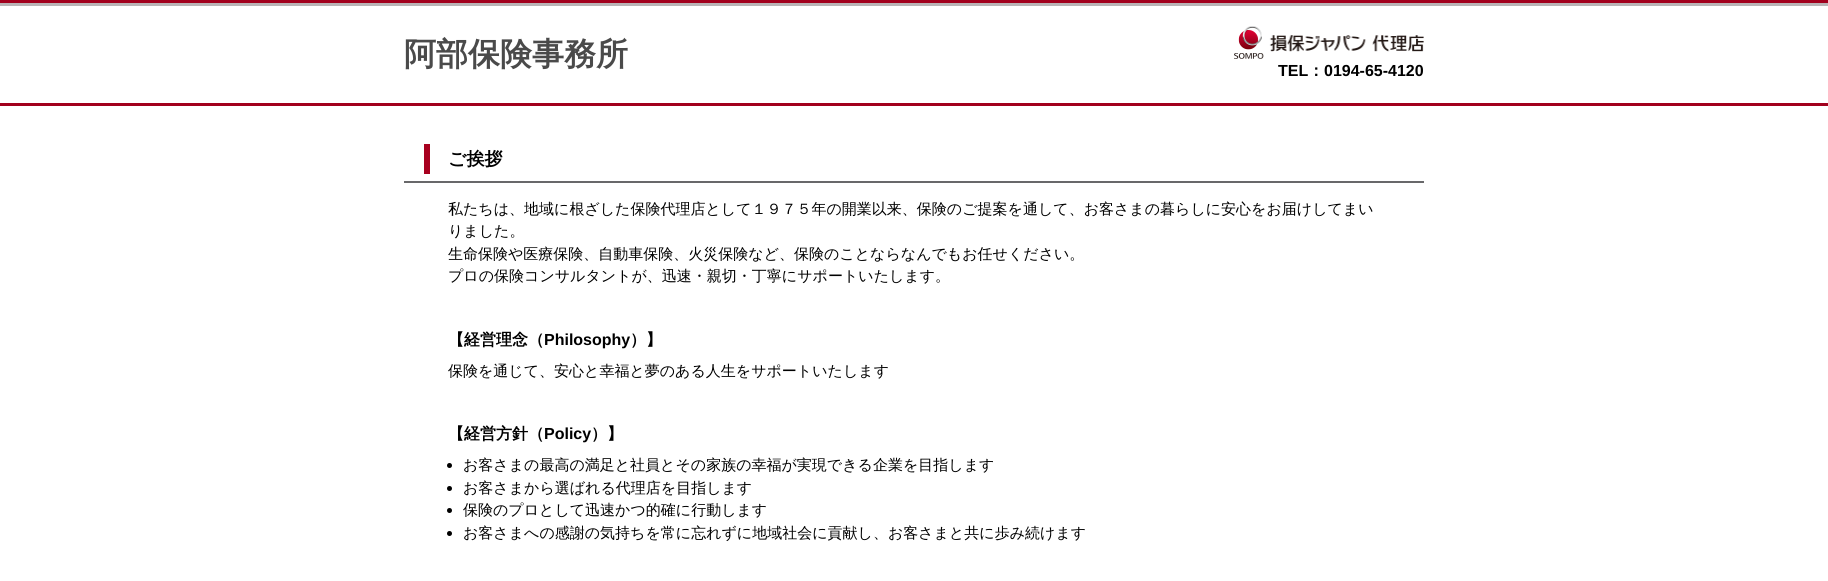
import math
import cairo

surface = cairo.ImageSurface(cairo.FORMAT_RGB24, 1828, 581)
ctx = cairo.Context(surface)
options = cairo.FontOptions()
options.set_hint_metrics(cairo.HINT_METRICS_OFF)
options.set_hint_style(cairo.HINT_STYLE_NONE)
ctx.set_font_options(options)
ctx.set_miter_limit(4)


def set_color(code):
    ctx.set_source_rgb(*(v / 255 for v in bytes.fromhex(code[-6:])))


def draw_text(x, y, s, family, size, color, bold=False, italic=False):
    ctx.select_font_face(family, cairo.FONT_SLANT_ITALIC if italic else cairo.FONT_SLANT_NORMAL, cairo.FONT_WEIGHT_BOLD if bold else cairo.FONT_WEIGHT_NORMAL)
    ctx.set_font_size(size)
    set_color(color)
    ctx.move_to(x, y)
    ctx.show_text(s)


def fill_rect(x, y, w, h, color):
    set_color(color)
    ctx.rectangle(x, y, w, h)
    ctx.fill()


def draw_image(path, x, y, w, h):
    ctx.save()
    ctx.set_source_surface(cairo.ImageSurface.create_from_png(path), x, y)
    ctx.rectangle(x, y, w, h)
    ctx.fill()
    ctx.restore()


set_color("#ffffff")
ctx.paint()
fill_rect(0, 0, 1828, 3, "#a2001d")
fill_rect(0, 3, 1828, 3, "#b9b4b6")
fill_rect(0, 103, 1828, 3, "#a2001d")
draw_text(404, 65, "阿部保険事務所", "WenQuanYi Zen Hei", 32, "#4a4a4a", bold=True)
draw_image("assets/img1.png", 1234, 26, 190, 33)
draw_text(1278, 76, "TEL", "Liberation Sans", 16, "#000000", bold=True)
draw_text(1308, 76, "：", "WenQuanYi Zen Hei", 16, "#000000", bold=True)
draw_text(1324, 76, "0194-65-4120", "Liberation Sans", 16, "#000000", bold=True)
fill_rect(404, 181, 1020, 2, "#68686a")
fill_rect(424, 144, 6, 30, "#a8001f")
draw_text(448, 165, "ご挨拶", "WenQuanYi Zen Hei", 18, "#000000", bold=True)
draw_text(448, 214, "私たちは、地域に根ざした保険代理店として１９７５年の開業以来、保険のご提案を通して、お客さまの暮らしに安心をお届けしてまい", "WenQuanYi Zen Hei Medium", 15, "#000000")
draw_text(448, 236, "りました。", "WenQuanYi Zen Hei Medium", 15, "#000000")
draw_text(448, 259, "生命保険や医療保険、自動車保険、火災保険など、保険のことならなんでもお任せください。", "WenQuanYi Zen Hei Medium", 15, "#000000")
draw_text(448, 281, "プロの保険コンサルタントが、迅速・親切・丁寧にサポートいたします。", "WenQuanYi Zen Hei Medium", 15, "#000000")
draw_text(448, 345, "【経営理念（", "WenQuanYi Zen Hei", 16, "#000000", bold=True)
draw_text(544, 345, "Philosophy", "Liberation Sans", 16, "#000000", bold=True)
draw_text(630, 345, "）】", "WenQuanYi Zen Hei", 16, "#000000", bold=True)
draw_text(448, 376, "保険を通じて、安心と幸福と夢のある人生をサポートいたします", "WenQuanYi Zen Hei Medium", 15, "#000000")
draw_text(448, 439, "【経営方針（", "WenQuanYi Zen Hei", 16, "#000000", bold=True)
draw_text(544, 439, "Policy", "Liberation Sans", 16, "#000000", bold=True)
draw_text(591, 439, "）】", "WenQuanYi Zen Hei", 16, "#000000", bold=True)
ctx.new_path()
ctx.arc(449.5, 465.5, 2.5, 0, 2 * math.pi)
ctx.fill()
draw_text(463, 470, "お客さまの最高の満足と社員とその家族の幸福が実現できる企業を目指します", "WenQuanYi Zen Hei Medium", 15, "#000000")
ctx.new_path()
ctx.arc(449.5, 488.5, 2.5, 0, 2 * math.pi)
ctx.fill()
draw_text(463, 493, "お客さまから選ばれる代理店を目指します", "WenQuanYi Zen Hei Medium", 15, "#000000")
ctx.new_path()
ctx.arc(449.5, 510.5, 2.5, 0, 2 * math.pi)
ctx.fill()
draw_text(463, 515, "保険のプロとして迅速かつ的確に行動します", "WenQuanYi Zen Hei Medium", 15, "#000000")
ctx.new_path()
ctx.arc(449.5, 533.5, 2.5, 0, 2 * math.pi)
ctx.fill()
draw_text(463, 538, "お客さまへの感謝の気持ちを常に忘れずに地域社会に貢献し、お客さまと共に歩み続けます", "WenQuanYi Zen Hei Medium", 15, "#000000")
surface.write_to_png("output.png")
